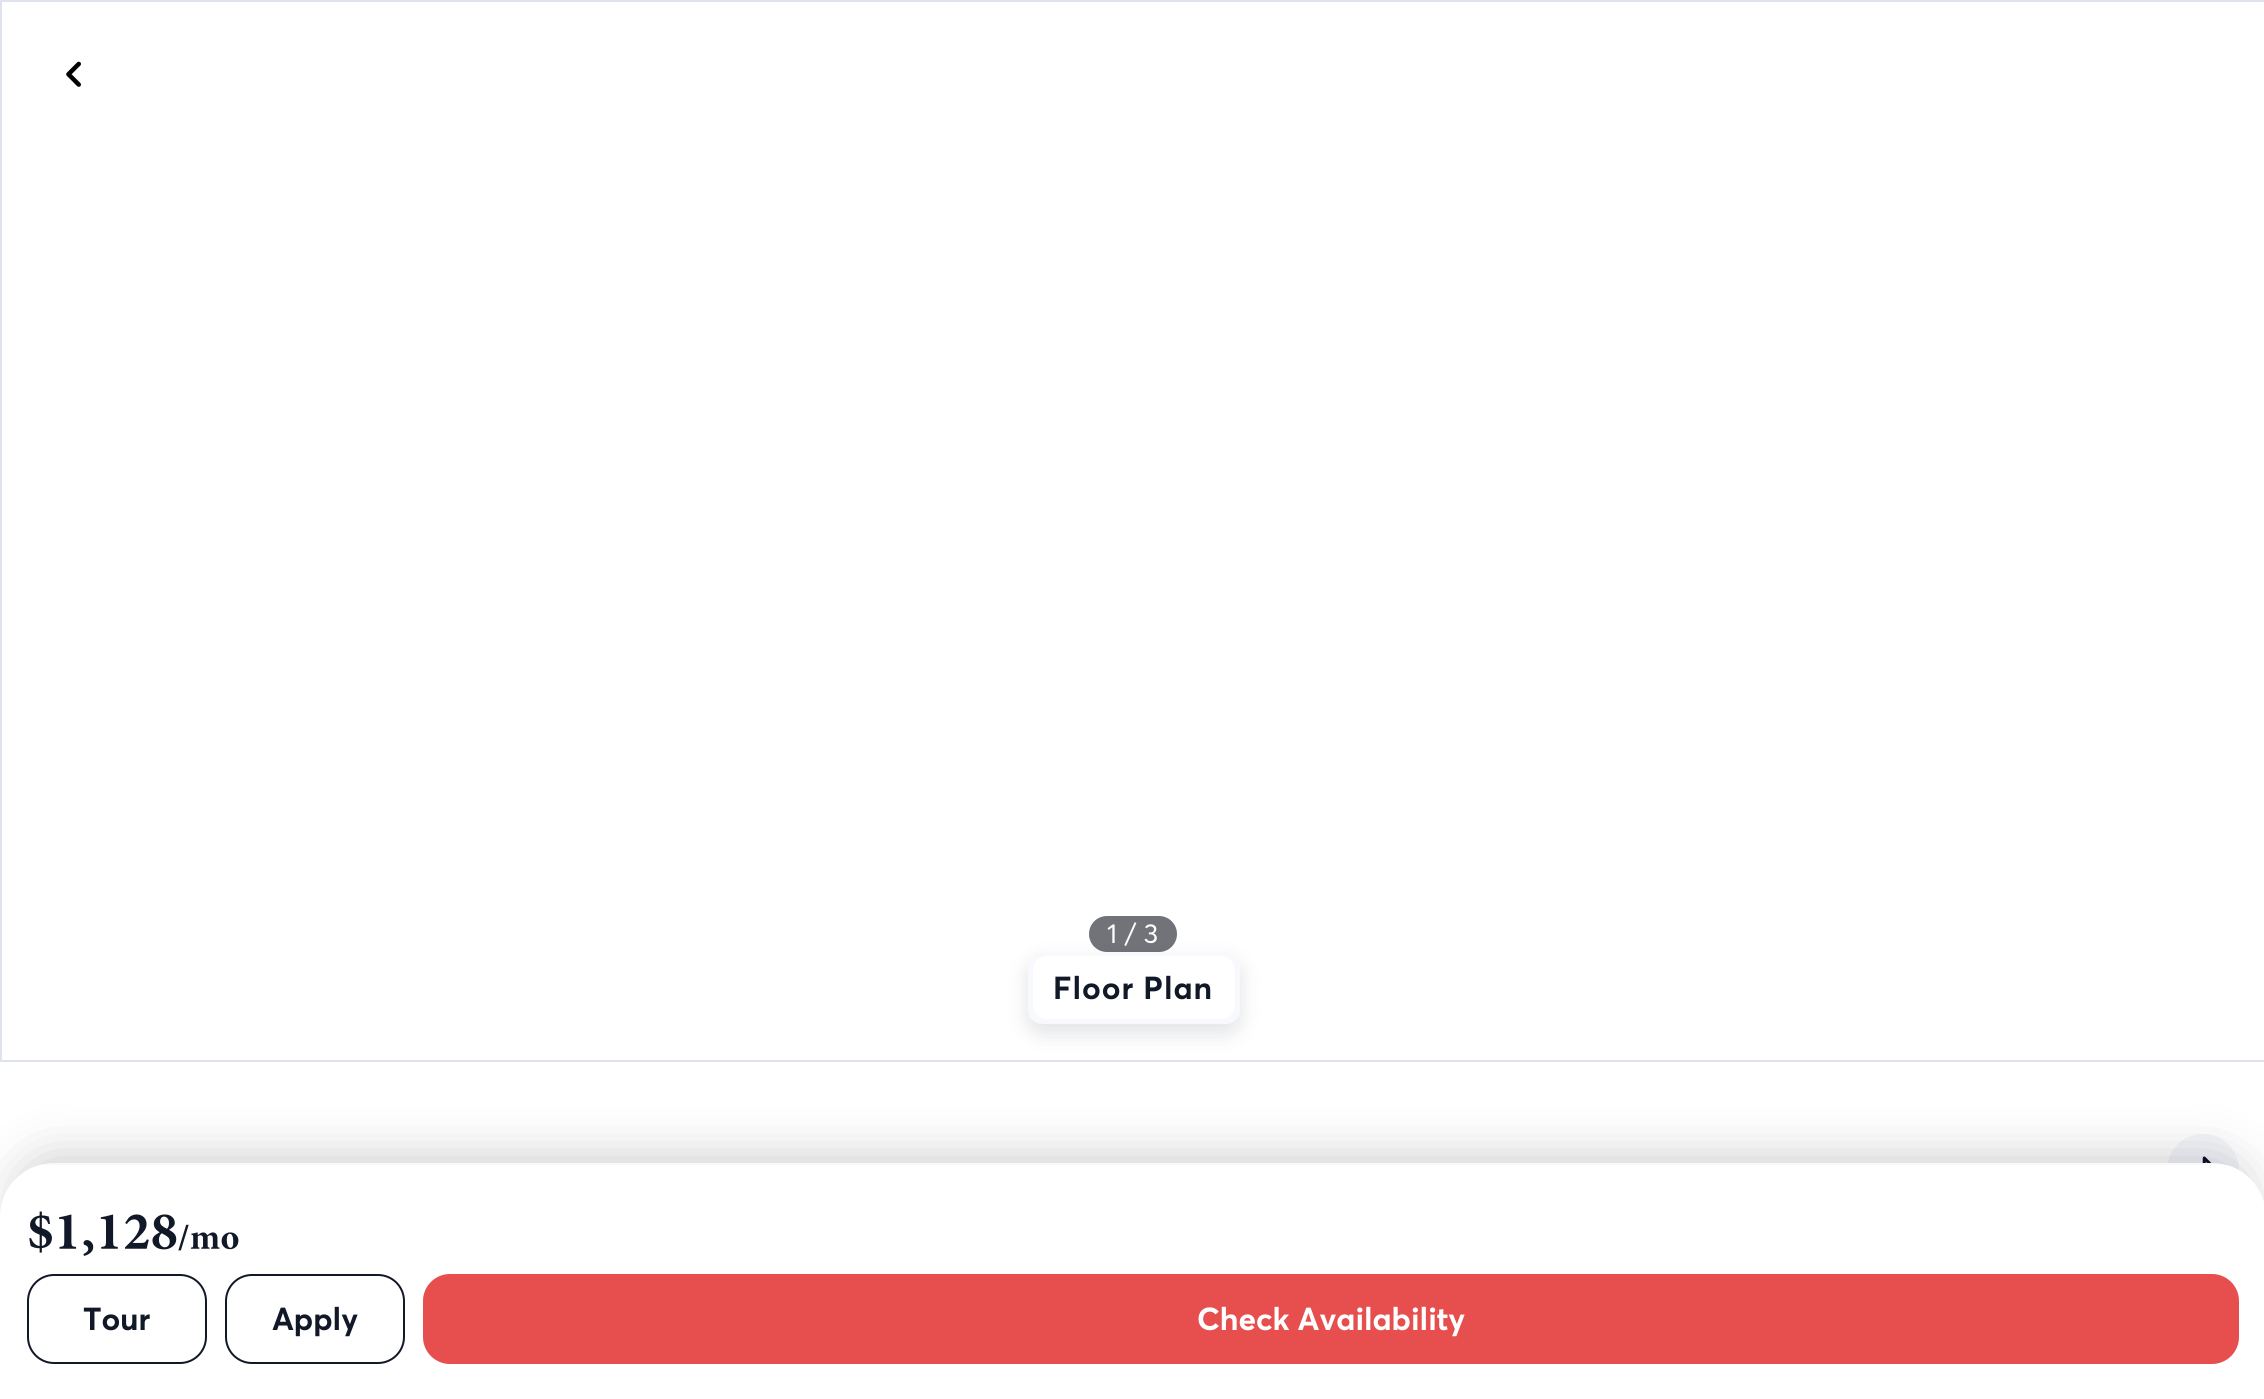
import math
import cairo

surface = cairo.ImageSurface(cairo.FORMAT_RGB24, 2264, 1399)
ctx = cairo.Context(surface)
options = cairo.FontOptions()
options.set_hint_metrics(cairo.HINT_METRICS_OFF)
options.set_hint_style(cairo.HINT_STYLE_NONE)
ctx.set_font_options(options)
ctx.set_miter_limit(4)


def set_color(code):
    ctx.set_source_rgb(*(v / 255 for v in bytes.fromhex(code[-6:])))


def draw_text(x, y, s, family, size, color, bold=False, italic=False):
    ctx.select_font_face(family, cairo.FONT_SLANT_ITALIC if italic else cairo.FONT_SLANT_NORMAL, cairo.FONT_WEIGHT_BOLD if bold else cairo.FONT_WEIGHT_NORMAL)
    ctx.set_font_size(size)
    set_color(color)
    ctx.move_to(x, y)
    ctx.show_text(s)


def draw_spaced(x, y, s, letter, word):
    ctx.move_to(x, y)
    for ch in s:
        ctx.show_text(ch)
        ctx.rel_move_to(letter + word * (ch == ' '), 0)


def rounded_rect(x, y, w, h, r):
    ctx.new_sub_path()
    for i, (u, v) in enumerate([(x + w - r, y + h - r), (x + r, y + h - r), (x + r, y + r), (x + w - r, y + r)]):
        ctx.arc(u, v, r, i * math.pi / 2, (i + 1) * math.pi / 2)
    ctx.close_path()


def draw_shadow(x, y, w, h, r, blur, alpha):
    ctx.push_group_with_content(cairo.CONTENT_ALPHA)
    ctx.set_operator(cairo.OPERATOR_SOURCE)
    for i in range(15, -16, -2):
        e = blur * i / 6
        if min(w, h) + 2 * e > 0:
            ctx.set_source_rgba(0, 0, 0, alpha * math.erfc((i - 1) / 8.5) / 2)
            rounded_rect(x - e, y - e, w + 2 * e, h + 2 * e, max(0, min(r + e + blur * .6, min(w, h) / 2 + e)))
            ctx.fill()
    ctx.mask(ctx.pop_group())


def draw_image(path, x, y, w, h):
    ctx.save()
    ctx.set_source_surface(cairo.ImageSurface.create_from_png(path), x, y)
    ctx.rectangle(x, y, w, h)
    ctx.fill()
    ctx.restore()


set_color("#ffffff")
ctx.paint()
ctx.rectangle(1, 1, 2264, 1060)
set_color("#dfe2ef")
ctx.stroke()
draw_image("assets/img1.png", 66, 61, 15, 26)
set_color("#717379")
rounded_rect(1089, 916, 88, 36, 18)
ctx.fill()
ctx.select_font_face("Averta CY")
ctx.set_font_size(27)
set_color("#ffffff")
draw_spaced(1107, 943, "1 / 3", 0.25, 0)
set_color("#050a22")
draw_shadow(1028, 961, 212, 72, 14, 11, 0.12)
set_color("#f7f9fc")
rounded_rect(1028, 952, 212, 72, 14)
ctx.fill()
set_color("#ffffff")
rounded_rect(1033, 956, 202, 63, 14)
ctx.fill()
ctx.select_font_face("Averta CY", cairo.FONT_SLANT_NORMAL, cairo.FONT_WEIGHT_BOLD)
ctx.set_font_size(31.5)
set_color("#111827")
draw_spaced(1053, 999, "Floor Plan", 1, 0)
set_color("#f4f5fa")
ctx.new_path()
ctx.arc(2203, 1170, 36, 0, 2 * math.pi)
ctx.fill()
draw_image("assets/img2.png", 2202, 1156, 11, 8)
set_color("#242a2e")
draw_shadow(11, 1152, 2244, 214, 43, 22.5, 0.2)
set_color("#ffffff")
ctx.new_path()
ctx.move_to(54, 1163)
ctx.line_to(2212, 1163)
ctx.curve_to(2242, 1163, 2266, 1187, 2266, 1217)
ctx.line_to(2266, 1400)
ctx.line_to(0, 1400)
ctx.line_to(0, 1217)
ctx.curve_to(0, 1187, 24, 1163, 54, 1163)
ctx.close_path()
ctx.fill()
ctx.set_source_rgba(0.878, 0.886, 0.937, 0.2)
ctx.rectangle(41, 1163, 2184, 2)
ctx.fill()
draw_image("assets/img3.png", 29, 1211, 23, 42)
draw_image("assets/img4.png", 59, 1214, 118, 42)
draw_image("assets/img5.png", 178, 1224, 61, 27)
rounded_rect(28, 1275, 178, 88, 26)
set_color("#111827")
ctx.stroke()
draw_text(83, 1330, "Tour", "Averta CY", 31.5, "#111827", bold=True)
rounded_rect(226, 1275, 178, 88, 26)
ctx.stroke()
draw_text(272, 1330, "Apply", "Averta CY", 31.5, "#111827", bold=True)
set_color("#e74f4f")
rounded_rect(423, 1274, 1816, 90, 27)
ctx.fill()
draw_text(1197, 1330, "Check Availability", "Averta CY", 31.5, "#ffffff", bold=True)
surface.write_to_png("output.png")
